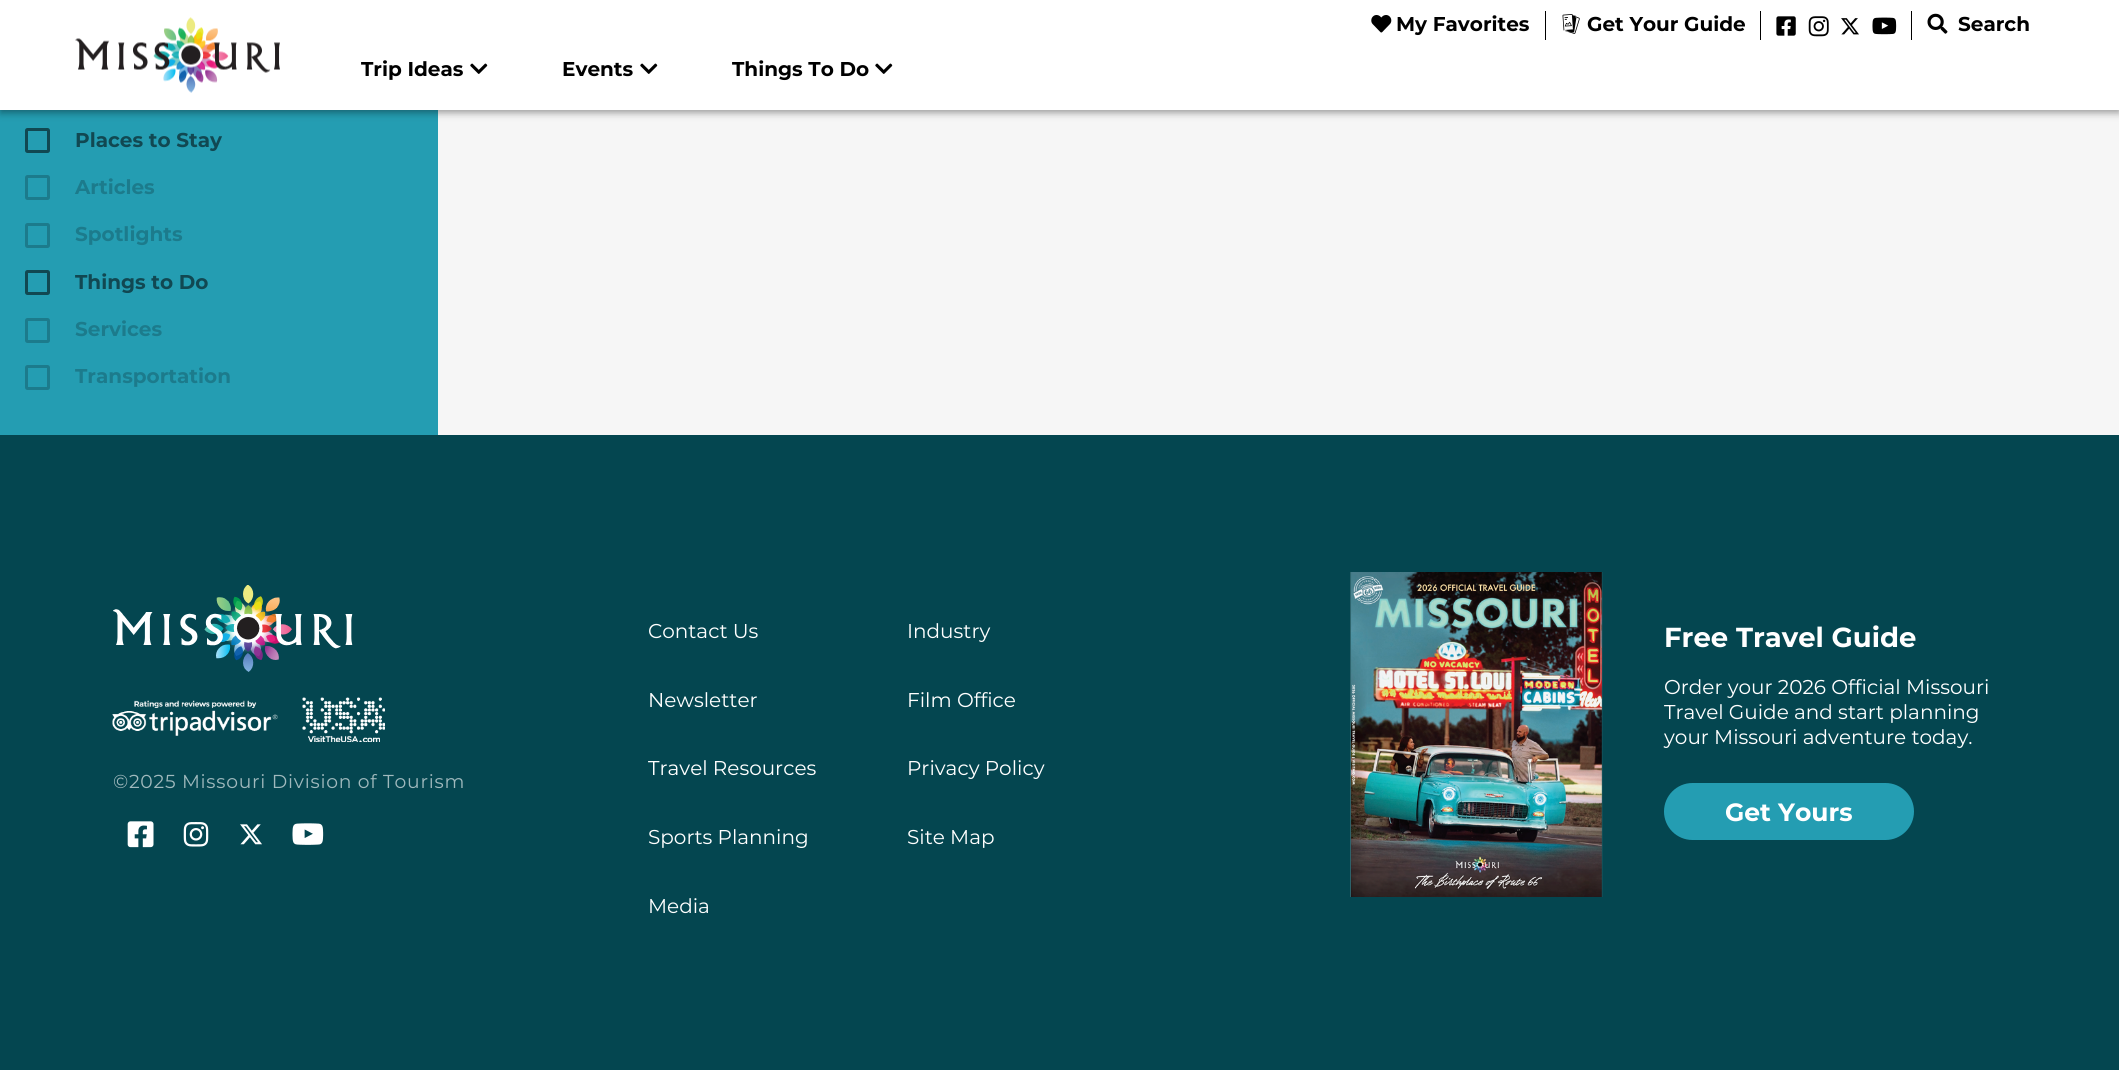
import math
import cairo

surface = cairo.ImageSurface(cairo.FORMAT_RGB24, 2119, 1070)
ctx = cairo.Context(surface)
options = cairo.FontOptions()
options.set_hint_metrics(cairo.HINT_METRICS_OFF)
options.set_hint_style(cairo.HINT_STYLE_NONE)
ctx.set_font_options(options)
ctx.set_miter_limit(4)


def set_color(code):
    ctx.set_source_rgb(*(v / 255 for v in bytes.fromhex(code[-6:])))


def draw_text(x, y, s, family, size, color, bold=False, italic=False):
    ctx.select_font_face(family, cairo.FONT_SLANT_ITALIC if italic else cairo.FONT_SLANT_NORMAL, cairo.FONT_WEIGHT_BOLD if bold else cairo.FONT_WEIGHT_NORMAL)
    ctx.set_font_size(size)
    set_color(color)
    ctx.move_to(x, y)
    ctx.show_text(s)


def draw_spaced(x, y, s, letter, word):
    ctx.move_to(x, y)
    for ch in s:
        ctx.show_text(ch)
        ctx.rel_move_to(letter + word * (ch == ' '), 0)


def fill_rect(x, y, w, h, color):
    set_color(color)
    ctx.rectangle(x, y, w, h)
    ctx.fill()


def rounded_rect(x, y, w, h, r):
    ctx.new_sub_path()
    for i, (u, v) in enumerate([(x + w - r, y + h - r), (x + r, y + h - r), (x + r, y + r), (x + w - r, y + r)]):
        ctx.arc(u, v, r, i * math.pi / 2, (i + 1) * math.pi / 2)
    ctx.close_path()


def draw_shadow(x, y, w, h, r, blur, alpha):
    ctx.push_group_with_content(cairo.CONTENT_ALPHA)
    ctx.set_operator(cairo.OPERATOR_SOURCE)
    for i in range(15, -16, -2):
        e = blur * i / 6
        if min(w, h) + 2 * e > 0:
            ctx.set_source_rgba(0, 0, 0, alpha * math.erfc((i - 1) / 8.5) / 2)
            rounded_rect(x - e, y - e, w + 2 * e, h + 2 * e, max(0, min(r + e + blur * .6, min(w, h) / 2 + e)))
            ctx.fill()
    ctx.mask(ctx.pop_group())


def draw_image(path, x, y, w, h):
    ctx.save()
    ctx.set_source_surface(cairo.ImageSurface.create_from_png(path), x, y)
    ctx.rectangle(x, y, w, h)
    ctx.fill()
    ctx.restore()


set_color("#f6f6f6")
ctx.paint()
fill_rect(0, 110, 438, 325, "#249db2")
rounded_rect(26.5, 129.5, 22, 22, 1)
set_color("#114852")
ctx.set_line_width(3)
ctx.stroke()
set_color("#000000")
draw_shadow(0, 1, 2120, 110, 0, 6, 0.12)
draw_shadow(0, 5, 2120, 110, 0, 3, 0.14)
draw_shadow(1, 4, 2118, 107, 0, 2.5, 0.2)
fill_rect(0, 0, 2119, 110, "#ffffff")
draw_image("assets/img1.png", 75, 17, 205, 76)
fill_rect(1545, 11, 1, 29, "#000000")
draw_image("assets/img2.png", 1371, 15, 21, 18)
draw_text(1396, 31, "My Favorites", "Montserrat", 20, "#000000", bold=True)
fill_rect(1760, 11, 1, 29, "#000000")
draw_image("assets/img3.png", 1562, 14, 18, 20)
draw_text(1587, 31, "Get Your Guide", "Montserrat", 20, "#000000", bold=True)
fill_rect(1911, 11, 1, 29, "#000000")
draw_image("assets/img4.png", 1776, 16, 20, 20)
draw_image("assets/img5.png", 1808, 16, 21, 21)
draw_image("assets/img6.png", 1841, 18, 18, 17)
draw_image("assets/img7.png", 1872, 17, 25, 18)
draw_image("assets/img8.png", 1927, 13, 21, 21)
draw_text(1958, 31, "Search", "Montserrat", 20, "#000000", bold=True)
draw_text(361, 76, "Trip Ideas", "Montserrat", 20, "#000000", bold=True)
draw_image("assets/img9.png", 470, 63, 18, 11)
draw_text(562, 76, "Events", "Montserrat", 20, "#000000", bold=True)
draw_image("assets/img9.png", 640, 63, 18, 11)
draw_text(732, 76, "Things To Do", "Montserrat", 20, "#000000", bold=True)
draw_image("assets/img9.png", 875, 63, 18, 11)
draw_text(75, 147, "Places to Stay", "Montserrat", 20, "#114852", bold=True)
rounded_rect(26.5, 176.5, 22, 22, 1)
set_color("#1c7b8c")
ctx.stroke()
draw_text(75, 194, "Articles", "Montserrat", 20, "#1c7b8c", bold=True)
rounded_rect(26.5, 224.5, 22, 22, 1)
ctx.stroke()
draw_text(75, 241, "Spotlights", "Montserrat", 20, "#1c7b8c", bold=True)
rounded_rect(26.5, 271.5, 22, 22, 1)
set_color("#114852")
ctx.stroke()
draw_text(75, 289, "Things to Do", "Montserrat", 20, "#114852", bold=True)
rounded_rect(26.5, 319.5, 22, 22, 1)
set_color("#1c7b8c")
ctx.stroke()
draw_text(75, 336, "Services", "Montserrat", 20, "#1c7b8c", bold=True)
rounded_rect(26.5, 366.5, 22, 22, 1)
ctx.stroke()
draw_text(75, 383, "Transportation", "Montserrat", 20, "#1c7b8c", bold=True)
fill_rect(0, 435, 2119, 635, "#044650")
draw_image("assets/img10.png", 113, 585, 240, 87)
draw_image("assets/img11.png", 112, 700, 166, 36)
draw_image("assets/img12.png", 302, 697, 83, 45)
ctx.select_font_face("Montserrat")
ctx.set_font_size(18.75)
set_color("#a0b9bd")
draw_spaced(113, 788, "©2025 Missouri Division of Tourism", 0.75, 0)
draw_image("assets/img13.png", 127, 821, 27, 27)
draw_image("assets/img14.png", 183, 822, 26, 25)
draw_image("assets/img15.png", 240, 824, 22, 21)
draw_image("assets/img16.png", 292, 823, 32, 22)
draw_text(648, 638, "Contact Us", "Montserrat", 20, "#ffffff")
draw_text(907, 638, "Industry", "Montserrat", 20, "#ffffff")
draw_text(648, 707, "Newsletter", "Montserrat", 20, "#ffffff")
draw_text(907, 707, "Film Office", "Montserrat", 20, "#ffffff")
draw_text(648, 775, "Travel Resources", "Montserrat", 20, "#ffffff")
draw_text(907, 775, "Privacy Policy", "Montserrat", 20, "#ffffff")
draw_text(648, 844, "Sports Planning", "Montserrat", 20, "#ffffff")
draw_text(907, 844, "Site Map", "Montserrat", 20, "#ffffff")
draw_text(648, 913, "Media", "Montserrat", 20, "#ffffff")
draw_image("assets/img17.png", 1350, 572, 253, 325)
draw_text(1664, 647, "Free Travel Guide", "Montserrat", 27.5, "#ffffff", bold=True)
draw_text(1664, 694, "Order your 2026 Official Missouri", "Montserrat", 20, "#ffffff")
draw_text(1664, 719, "Travel Guide and start planning", "Montserrat", 20, "#ffffff")
draw_text(1664, 744, "your Missouri adventure today.", "Montserrat", 20, "#ffffff")
set_color("#249db2")
rounded_rect(1664, 783, 250, 57, 28.5)
ctx.fill()
draw_text(1725, 821, "Get Yours", "Montserrat", 25, "#ffffff", bold=True)
surface.write_to_png("output.png")
